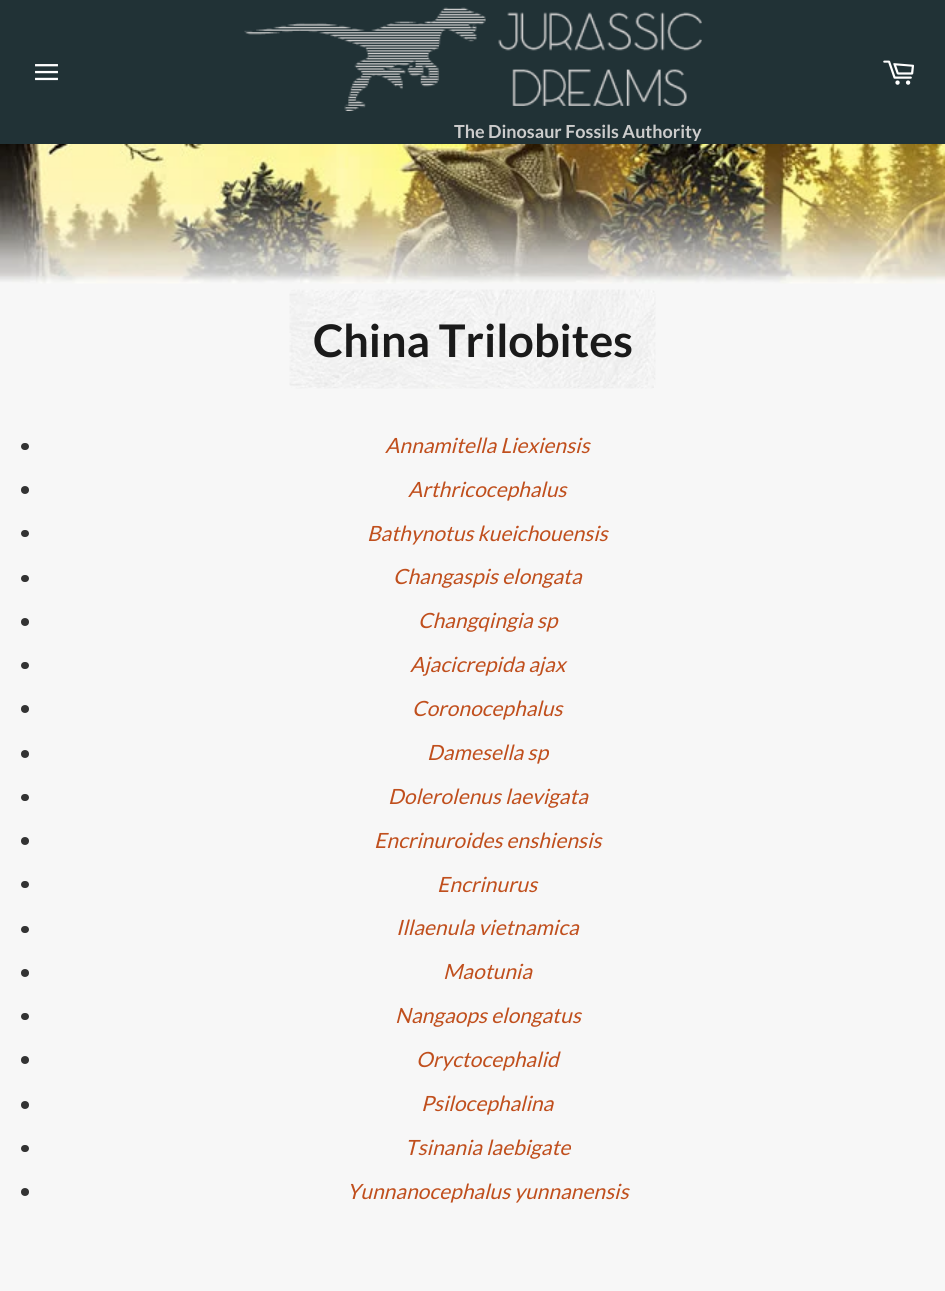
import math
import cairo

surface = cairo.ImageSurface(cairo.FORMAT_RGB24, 945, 1291)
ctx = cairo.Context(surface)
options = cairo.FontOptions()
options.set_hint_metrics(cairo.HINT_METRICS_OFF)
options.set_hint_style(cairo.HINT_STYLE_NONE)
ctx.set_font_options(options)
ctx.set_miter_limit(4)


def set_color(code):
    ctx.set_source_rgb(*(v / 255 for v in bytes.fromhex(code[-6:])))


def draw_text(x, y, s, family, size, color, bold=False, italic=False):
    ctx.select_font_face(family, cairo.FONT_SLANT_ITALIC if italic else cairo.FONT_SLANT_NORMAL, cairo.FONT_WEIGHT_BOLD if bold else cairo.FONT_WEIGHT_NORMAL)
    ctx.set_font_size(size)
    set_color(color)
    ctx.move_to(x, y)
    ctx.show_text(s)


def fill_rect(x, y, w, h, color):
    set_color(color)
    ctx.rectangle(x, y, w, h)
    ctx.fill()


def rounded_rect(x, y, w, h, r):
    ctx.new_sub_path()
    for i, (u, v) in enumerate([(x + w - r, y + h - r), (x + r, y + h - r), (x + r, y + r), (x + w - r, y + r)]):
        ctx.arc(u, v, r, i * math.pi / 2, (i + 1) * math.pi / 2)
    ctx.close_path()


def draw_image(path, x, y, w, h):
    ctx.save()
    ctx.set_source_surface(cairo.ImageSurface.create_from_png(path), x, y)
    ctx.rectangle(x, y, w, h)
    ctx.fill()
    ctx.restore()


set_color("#f7f7f7")
ctx.paint()
fill_rect(0, 0, 945, 144, "#213236")
draw_image("assets/img1.png", 35, 64, 23, 17)
draw_image("assets/img2.png", 883, 60, 31, 25)
draw_image("assets/img3.png", 244, 7, 458, 104)
draw_text(454, 138, "The Dinosaur Fossils Authority", "Lato", 18, "#cccccc", bold=True)
draw_image("assets/img4.png", 0, 144, 945, 140)
draw_image("assets/img5.png", 289, 289, 367, 100)
draw_text(313, 357, "China Trilobites", "Lato", 45, "#1a1a1a", bold=True)
set_color("#333333")
rounded_rect(21, 443, 8, 7, 3.5)
ctx.fill()
draw_text(385, 453, "Annamitella Liexiensis", "Lato", 21, "#c04f1d", italic=True)
set_color("#333333")
ctx.new_path()
ctx.arc(25, 490, 4, 0, 2 * math.pi)
ctx.fill()
draw_text(408, 497, "Arthricocephalus", "Lato", 21, "#c04f1d", italic=True)
set_color("#333333")
rounded_rect(21, 530, 8, 7, 3.5)
ctx.fill()
draw_text(367, 541, "Bathynotus kueichouensis", "Lato", 21, "#c04f1d", italic=True)
set_color("#333333")
rounded_rect(21, 575, 8, 7, 3.5)
ctx.fill()
draw_text(393, 584, "Changaspis elongata", "Lato", 21, "#c04f1d", italic=True)
set_color("#333333")
ctx.new_path()
ctx.arc(25, 622, 4, 0, 2 * math.pi)
ctx.fill()
draw_text(418, 628, "Changqingia sp", "Lato", 21, "#c04f1d", italic=True)
set_color("#333333")
rounded_rect(21, 662, 8, 7, 3.5)
ctx.fill()
draw_text(410, 672, "Ajacicrepida ajax", "Lato", 21, "#c04f1d", italic=True)
set_color("#333333")
ctx.new_path()
ctx.arc(25, 709, 4, 0, 2 * math.pi)
ctx.fill()
draw_text(412, 716, "Coronocephalus", "Lato", 21, "#c04f1d", italic=True)
set_color("#333333")
ctx.new_path()
ctx.arc(25, 754, 4, 0, 2 * math.pi)
ctx.fill()
draw_text(427, 760, "Damesella sp", "Lato", 21, "#c04f1d", italic=True)
set_color("#333333")
rounded_rect(21, 794, 8, 7, 3.5)
ctx.fill()
draw_text(388, 804, "Dolerolenus laevigata", "Lato", 21, "#c04f1d", italic=True)
set_color("#333333")
ctx.new_path()
ctx.arc(25, 841, 4, 0, 2 * math.pi)
ctx.fill()
draw_text(374, 848, "Encrinuroides enshiensis", "Lato", 21, "#c04f1d", italic=True)
set_color("#333333")
rounded_rect(21, 881, 8, 7, 3.5)
ctx.fill()
draw_text(437, 892, "Encrinurus", "Lato", 21, "#c04f1d", italic=True)
set_color("#333333")
rounded_rect(21, 926, 8, 7, 3.5)
ctx.fill()
draw_text(396, 935, "Illaenula vietnamica", "Lato", 21, "#c04f1d", italic=True)
set_color("#333333")
ctx.new_path()
ctx.arc(25, 973, 4, 0, 2 * math.pi)
ctx.fill()
draw_text(443, 979, "Maotunia", "Lato", 21, "#c04f1d", italic=True)
set_color("#333333")
rounded_rect(21, 1013, 8, 7, 3.5)
ctx.fill()
draw_text(395, 1023, "Nangaops elongatus", "Lato", 21, "#c04f1d", italic=True)
set_color("#333333")
ctx.new_path()
ctx.arc(25, 1060, 4, 0, 2 * math.pi)
ctx.fill()
draw_text(416, 1067, "Oryctocephalid", "Lato", 21, "#c04f1d", italic=True)
set_color("#333333")
ctx.new_path()
ctx.arc(25, 1105, 4, 0, 2 * math.pi)
ctx.fill()
draw_text(421, 1111, "Psilocephalina", "Lato", 21, "#c04f1d", italic=True)
set_color("#333333")
rounded_rect(21, 1145, 8, 7, 3.5)
ctx.fill()
draw_text(405, 1155, "Tsinania laebigate", "Lato", 21, "#c04f1d", italic=True)
set_color("#333333")
ctx.new_path()
ctx.arc(25, 1192, 4, 0, 2 * math.pi)
ctx.fill()
draw_text(347, 1199, "Yunnanocephalus yunnanensis", "Lato", 21, "#c04f1d", italic=True)
surface.write_to_png("output.png")
